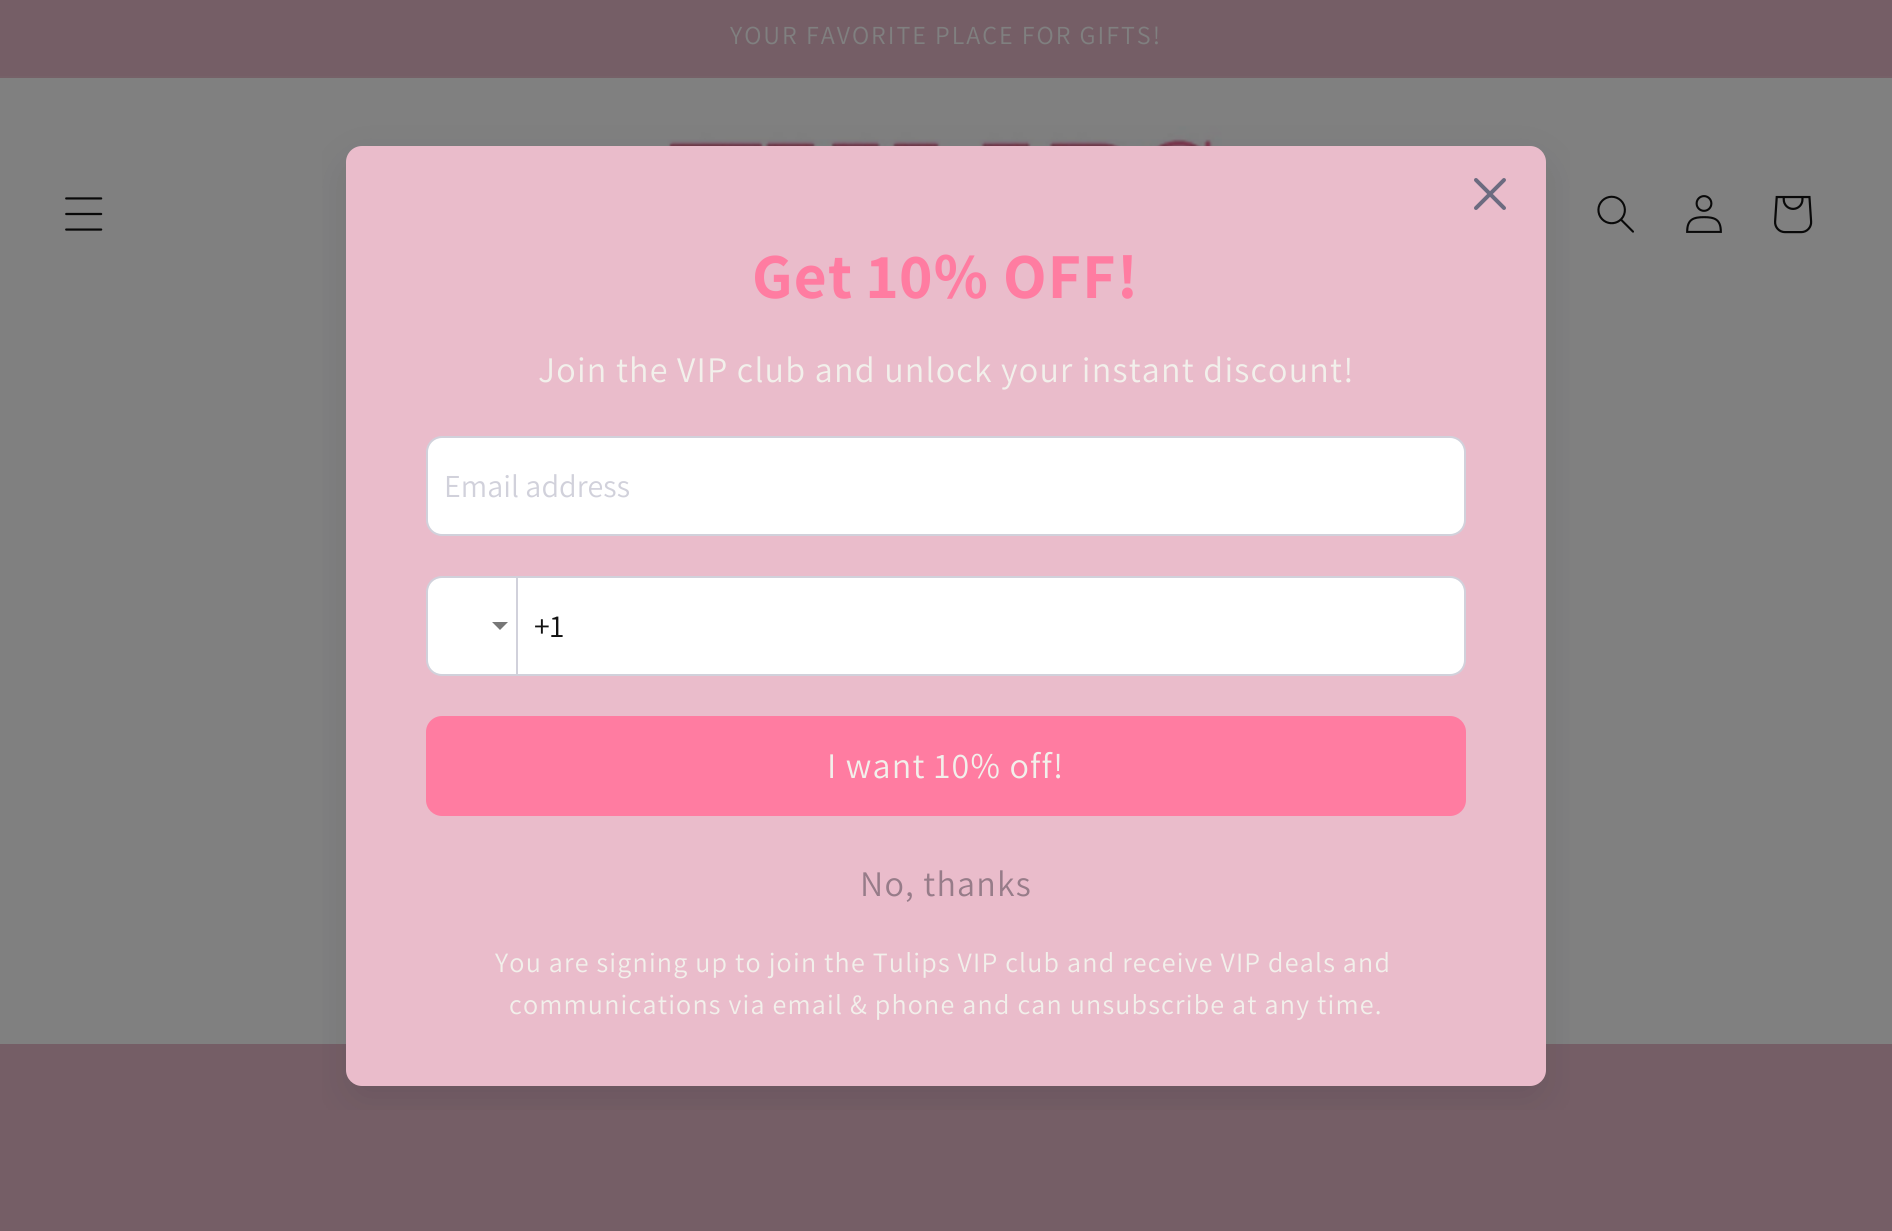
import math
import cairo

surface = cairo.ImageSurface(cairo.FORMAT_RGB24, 1892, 1231)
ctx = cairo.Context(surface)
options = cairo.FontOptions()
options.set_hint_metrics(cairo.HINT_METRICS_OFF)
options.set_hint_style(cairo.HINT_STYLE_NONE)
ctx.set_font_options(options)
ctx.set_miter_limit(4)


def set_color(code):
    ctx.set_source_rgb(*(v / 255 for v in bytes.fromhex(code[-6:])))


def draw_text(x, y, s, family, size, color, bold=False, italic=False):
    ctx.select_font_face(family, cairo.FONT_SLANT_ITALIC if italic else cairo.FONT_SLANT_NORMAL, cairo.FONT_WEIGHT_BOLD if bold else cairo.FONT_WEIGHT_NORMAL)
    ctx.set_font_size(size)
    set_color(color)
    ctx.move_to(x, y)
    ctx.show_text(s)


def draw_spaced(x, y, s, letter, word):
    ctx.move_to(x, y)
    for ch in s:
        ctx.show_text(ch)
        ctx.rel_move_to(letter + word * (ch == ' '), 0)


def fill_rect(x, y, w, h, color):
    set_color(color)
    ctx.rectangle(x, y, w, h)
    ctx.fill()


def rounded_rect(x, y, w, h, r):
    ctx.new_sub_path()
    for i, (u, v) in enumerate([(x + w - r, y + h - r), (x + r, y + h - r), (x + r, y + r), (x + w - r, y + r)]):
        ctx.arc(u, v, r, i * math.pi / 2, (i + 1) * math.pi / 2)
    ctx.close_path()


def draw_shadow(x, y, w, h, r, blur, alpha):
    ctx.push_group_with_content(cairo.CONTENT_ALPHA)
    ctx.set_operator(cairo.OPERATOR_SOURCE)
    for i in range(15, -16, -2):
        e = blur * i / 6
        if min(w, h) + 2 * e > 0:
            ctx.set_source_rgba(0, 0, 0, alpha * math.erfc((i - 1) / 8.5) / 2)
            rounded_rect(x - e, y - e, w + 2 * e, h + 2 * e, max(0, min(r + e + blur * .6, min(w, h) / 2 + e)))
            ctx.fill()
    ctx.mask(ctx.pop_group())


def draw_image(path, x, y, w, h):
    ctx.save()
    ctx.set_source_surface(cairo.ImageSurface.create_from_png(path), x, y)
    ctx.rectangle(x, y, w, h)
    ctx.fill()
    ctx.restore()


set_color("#808080")
ctx.paint()
fill_rect(0, 0, 1892, 76, "#755e66")
fill_rect(0, 76, 1892, 2, "#766168")
ctx.select_font_face("Assistant")
ctx.set_font_size(26)
set_color("#808080")
draw_spaced(730, 44, "YOUR FAVORITE PLACE FOR GIFTS!", 2, 0)
draw_image("assets/img1.png", 667, 126, 555, 20)
draw_image("assets/img2.png", 65, 197, 38, 34)
draw_image("assets/img3.png", 1597, 195, 37, 38)
draw_image("assets/img4.png", 1686, 195, 36, 38)
draw_image("assets/img5.png", 1774, 195, 39, 39)
fill_rect(0, 1044, 1892, 187, "#755e66")
ctx.save()
ctx.rectangle(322, 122, 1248, 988)
ctx.clip()
set_color("#121127")
draw_shadow(346, 162, 1200, 940, 16, 20, 0.1)
ctx.restore()
set_color("#eabccb")
rounded_rect(346, 146, 1200, 940, 16)
ctx.fill()
draw_image("assets/img6.png", 1474, 178, 32, 32)
ctx.select_font_face("Assistant", cairo.FONT_SLANT_NORMAL, cairo.FONT_WEIGHT_BOLD)
ctx.set_font_size(64)
set_color("#ff7ca1")
draw_spaced(752, 298, "Get 10% OFF!", 1.2, 0)
ctx.select_font_face("Assistant")
ctx.set_font_size(36)
set_color("#f2f0eb")
draw_spaced(538, 382, "Join the VIP club and unlock your instant discount!", 1.2, 0)
set_color("#ffffff")
rounded_rect(427, 437, 1038, 98, 15)
ctx.fill_preserve()
set_color("#d1d1db")
ctx.stroke()
draw_text(444, 497, "Email address", "Assistant", 32, "#d1d1db")
set_color("#ffffff")
ctx.new_path()
ctx.move_to(517, 577)
ctx.line_to(1450, 577)
ctx.curve_to(1458.5, 577, 1465, 583.5, 1465, 592)
ctx.line_to(1465, 660)
ctx.curve_to(1465, 668.5, 1458.5, 675, 1450, 675)
ctx.line_to(517, 675)
ctx.close_path()
ctx.fill_preserve()
set_color("#d1d1db")
ctx.stroke()
set_color("#ffffff")
ctx.new_path()
ctx.move_to(442, 577)
ctx.line_to(517, 577)
ctx.line_to(517, 675)
ctx.line_to(442, 675)
ctx.curve_to(433.5, 675, 427, 668.5, 427, 660)
ctx.line_to(427, 592)
ctx.curve_to(427, 583.5, 433.5, 577, 442, 577)
ctx.close_path()
ctx.fill_preserve()
set_color("#d1d1db")
ctx.stroke()
set_color("#777777")
ctx.new_path()
ctx.move_to(492, 622)
ctx.line_to(508, 622)
ctx.line_to(500, 630)
ctx.close_path()
ctx.fill()
draw_text(534, 637, "+1", "Assistant", 32, "#121212")
set_color("#ff7ca1")
rounded_rect(426, 716, 1040, 100, 16)
ctx.fill()
ctx.set_font_size(36)
set_color("#f2f0eb")
draw_spaced(827, 778, "I want 10% off!", 1.2, 0)
set_color("#977c89")
draw_spaced(860, 896, "No, thanks", 1.2, 0)
ctx.set_font_size(28)
set_color("#f2f0eb")
draw_spaced(495, 972, "You are signing up to join the Tulips VIP club and receive VIP deals and", 1.2, 0)
draw_spaced(509, 1014, "communications via email & phone and can unsubscribe at any time.", 1.2, 0)
surface.write_to_png("output.png")
